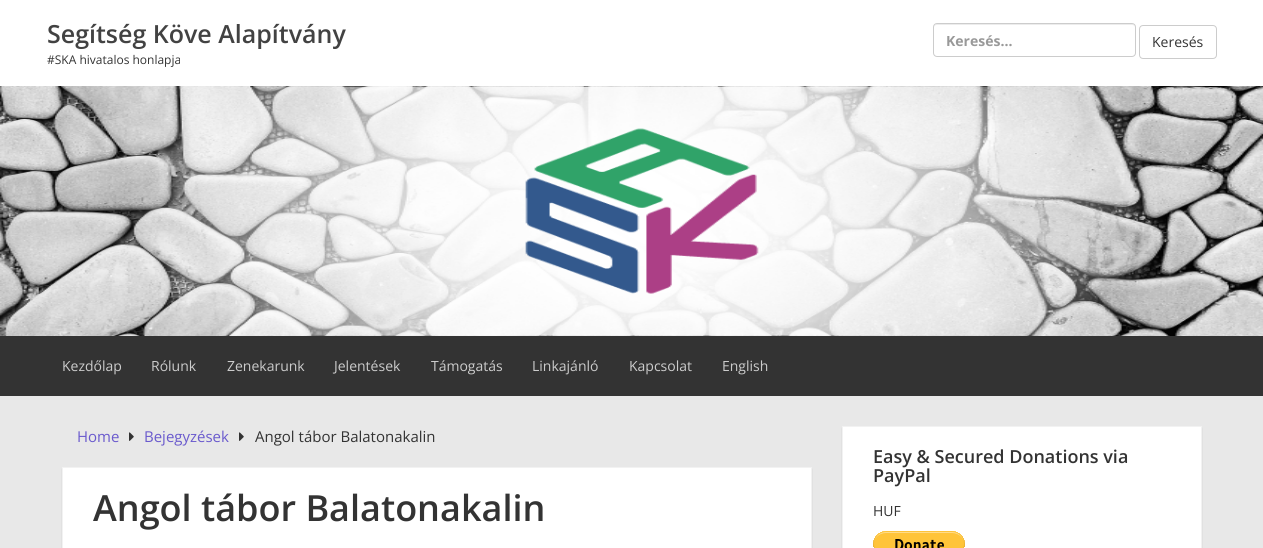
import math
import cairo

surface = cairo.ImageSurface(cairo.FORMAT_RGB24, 1263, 548)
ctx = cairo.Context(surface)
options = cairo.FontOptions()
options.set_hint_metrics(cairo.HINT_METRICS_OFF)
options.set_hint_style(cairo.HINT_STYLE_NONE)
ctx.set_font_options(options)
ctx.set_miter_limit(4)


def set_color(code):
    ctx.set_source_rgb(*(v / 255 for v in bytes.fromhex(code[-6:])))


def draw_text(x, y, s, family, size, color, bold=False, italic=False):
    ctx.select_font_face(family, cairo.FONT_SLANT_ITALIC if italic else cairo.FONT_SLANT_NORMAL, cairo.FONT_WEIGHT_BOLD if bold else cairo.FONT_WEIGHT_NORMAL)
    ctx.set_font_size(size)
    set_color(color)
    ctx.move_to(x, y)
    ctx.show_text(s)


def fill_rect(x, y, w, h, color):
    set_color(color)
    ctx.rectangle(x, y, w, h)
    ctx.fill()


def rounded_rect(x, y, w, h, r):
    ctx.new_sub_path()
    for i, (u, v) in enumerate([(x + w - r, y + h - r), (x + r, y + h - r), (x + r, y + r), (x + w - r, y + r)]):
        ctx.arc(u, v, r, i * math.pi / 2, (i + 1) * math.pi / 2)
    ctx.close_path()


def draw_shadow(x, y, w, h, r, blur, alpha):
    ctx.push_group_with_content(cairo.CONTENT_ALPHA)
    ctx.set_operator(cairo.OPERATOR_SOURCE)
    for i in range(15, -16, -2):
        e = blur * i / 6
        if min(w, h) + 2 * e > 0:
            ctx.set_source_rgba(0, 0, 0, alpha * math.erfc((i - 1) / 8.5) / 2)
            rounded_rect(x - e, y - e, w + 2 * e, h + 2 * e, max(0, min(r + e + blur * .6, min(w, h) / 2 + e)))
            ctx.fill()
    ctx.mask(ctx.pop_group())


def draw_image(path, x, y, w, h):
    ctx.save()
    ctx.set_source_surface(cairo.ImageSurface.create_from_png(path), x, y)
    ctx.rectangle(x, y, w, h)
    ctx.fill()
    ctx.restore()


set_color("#e8e8e8")
ctx.paint()
fill_rect(0, 0, 1263, 86, "#ffffff")
draw_text(47, 43, "Segítség Köve Alapítvány", "Open Sans SemiBold", 25, "#424242")
draw_text(47, 64, "#SKA hivatalos honlapja", "Open Sans", 12, "#333333")
set_color("#ececec")
ctx.new_path()
ctx.move_to(937, 25)
ctx.line_to(1132, 25)
ctx.curve_to(1134, 25, 1135, 26, 1135, 28)
ctx.curve_to(1135, 26, 1134, 24, 1132, 24)
ctx.line_to(937, 24)
ctx.curve_to(935, 24, 934, 26, 934, 28)
ctx.curve_to(934, 26, 935, 25, 937, 25)
ctx.close_path()
ctx.fill()
rounded_rect(933.5, 23.5, 202, 33, 3.5)
set_color("#cccccc")
ctx.set_line_width(1)
ctx.stroke()
draw_text(946, 46, "Keresés…", "Open Sans", 14, "#999999", bold=True)
rounded_rect(1139.5, 25.5, 77, 33, 3.5)
set_color("#cccccc")
ctx.stroke()
draw_text(1152, 47, "Keresés", "Open Sans", 14, "#333333")
draw_image("assets/img1.png", 0, 86, 1263, 250)
fill_rect(0, 336, 1263, 60, "#333333")
draw_text(62, 371, "Kezdőlap", "Open Sans", 14, "#cccccc")
draw_text(151, 371, "Rólunk", "Open Sans", 14, "#cccccc")
draw_text(227, 371, "Zenekarunk", "Open Sans", 14, "#cccccc")
draw_text(334, 371, "Jelentések", "Open Sans", 14, "#cccccc")
draw_text(431, 371, "Támogatás", "Open Sans", 14, "#cccccc")
draw_text(532, 371, "Linkajánló", "Open Sans", 14, "#cccccc")
draw_text(629, 371, "Kapcsolat", "Open Sans", 14, "#cccccc")
draw_text(722, 371, "English", "Open Sans", 14, "#cccccc")
draw_text(77, 442, "Home", "Open Sans", 15, "#6a5acd")
draw_image("assets/img2.png", 129, 432, 5, 9)
draw_text(144, 442, "Bejegyzések", "Open Sans", 15, "#6a5acd")
draw_image("assets/img2.png", 239, 432, 5, 9)
draw_text(255, 442, "Angol tábor Balatonakalin", "Open Sans", 15, "#333333")
set_color("#cccccc")
draw_shadow(62, 469, 750, 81, 0, 0.5, 1)
set_color("#ffffff")
ctx.rectangle(62.5, 467.5, 749, 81)
ctx.fill_preserve()
set_color("#f2f2f2")
ctx.stroke()
draw_text(93, 521, "Angol tábor Balatonakalin", "Open Sans SemiBold", 36, "#333333")
set_color("#cccccc")
draw_shadow(842, 428, 360, 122, 0, 0.5, 1)
set_color("#ffffff")
ctx.rectangle(842.5, 426.5, 359, 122)
ctx.fill_preserve()
set_color("#f2f2f2")
ctx.stroke()
draw_text(873, 463, "Easy & Secured Donations via", "Open Sans SemiBold", 18, "#333333")
draw_text(873, 482, "PayPal", "Open Sans SemiBold", 18, "#333333")
draw_text(873, 516, "HUF", "Open Sans", 14, "#333333")
draw_image("assets/img3.png", 873, 531, 92, 17)
surface.write_to_png("output.png")
